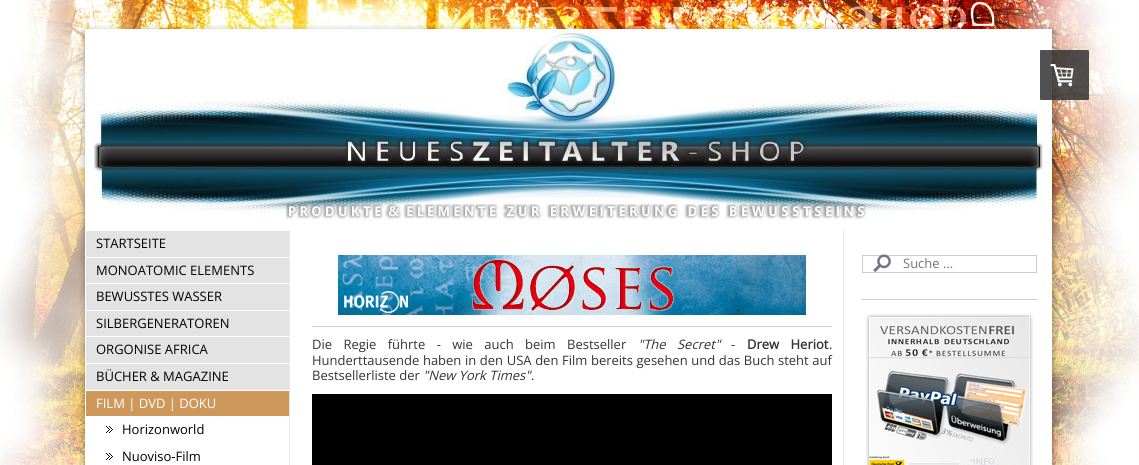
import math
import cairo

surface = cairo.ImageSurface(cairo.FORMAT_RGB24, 1139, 465)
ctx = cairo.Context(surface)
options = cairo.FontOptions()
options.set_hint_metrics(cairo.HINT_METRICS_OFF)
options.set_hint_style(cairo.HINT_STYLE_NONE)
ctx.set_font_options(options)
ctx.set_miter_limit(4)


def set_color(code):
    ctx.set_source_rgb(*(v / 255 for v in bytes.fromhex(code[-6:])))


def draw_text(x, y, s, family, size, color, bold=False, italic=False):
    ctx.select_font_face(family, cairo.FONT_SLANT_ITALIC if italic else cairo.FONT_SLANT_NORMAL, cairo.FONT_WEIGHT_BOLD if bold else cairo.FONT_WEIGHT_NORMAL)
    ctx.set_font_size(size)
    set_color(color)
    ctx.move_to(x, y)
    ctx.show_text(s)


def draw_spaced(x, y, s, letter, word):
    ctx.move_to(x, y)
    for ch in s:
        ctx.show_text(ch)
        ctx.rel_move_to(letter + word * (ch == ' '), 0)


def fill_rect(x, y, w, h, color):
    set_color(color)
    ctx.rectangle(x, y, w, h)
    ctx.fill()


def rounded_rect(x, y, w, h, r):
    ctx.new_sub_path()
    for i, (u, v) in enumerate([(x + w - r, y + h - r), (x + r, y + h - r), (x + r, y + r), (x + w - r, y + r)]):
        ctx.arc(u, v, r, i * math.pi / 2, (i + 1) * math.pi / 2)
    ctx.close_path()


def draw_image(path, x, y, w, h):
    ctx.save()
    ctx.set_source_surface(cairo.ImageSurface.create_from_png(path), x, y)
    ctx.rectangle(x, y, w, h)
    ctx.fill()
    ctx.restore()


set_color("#ffffff")
ctx.paint()
draw_image("assets/img1.png", 0, 0, 1139, 465)
draw_image("assets/img2.png", 82, 25, 975, 5)
draw_image("assets/img3.png", 79, 30, 981, 200)
draw_image("assets/img4.png", 86, 30, 960, 200)
draw_image("assets/img5.png", 79, 230, 981, 235)
fill_rect(86, 231, 203, 159, "#e3e3e3")
fill_rect(86, 257, 203, 1, "#ffffff")
draw_text(96, 248, "STARTSEITE", "Open Sans", 13, "#000000")
fill_rect(86, 283, 203, 1, "#ffffff")
draw_text(96, 275, "MONOATOMIC ELEMENTS", "Open Sans", 13, "#000000")
fill_rect(86, 310, 203, 1, "#ffffff")
draw_text(96, 301, "BEWUSSTES WASSER", "Open Sans", 13, "#000000")
fill_rect(86, 336, 203, 1, "#ffffff")
draw_text(96, 328, "SILBERGENERATOREN", "Open Sans", 13, "#000000")
fill_rect(86, 363, 203, 1, "#ffffff")
draw_text(96, 354, "ORGONISE AFRICA", "Open Sans", 13, "#000000")
draw_text(96, 381, "BÜCHER & MAGAZINE", "Open Sans", 13, "#000000")
fill_rect(86, 391, 203, 25, "#cf985b")
draw_text(96, 408, "FILM | DVD | DOKU", "Open Sans", 13, "#ffffff")
draw_image("assets/img6.png", 106, 426, 7, 7)
draw_text(122, 434, "Horizonworld", "Open Sans", 13, "#000000")
draw_image("assets/img6.png", 106, 453, 7, 7)
draw_text(122, 461, "Nuoviso-Film", "Open Sans", 13, "#000000")
ctx.set_source_rgba(0.2, 0.2, 0.2, 0.85)
rounded_rect(1040, 50, 49, 50, 1)
ctx.fill()
draw_image("assets/img7.png", 1050, 64, 24, 23)
ctx.rectangle(862.5, 255.5, 174, 17)
set_color("#cccccc")
ctx.set_line_width(1)
ctx.stroke()
draw_image("assets/img8.png", 873, 254, 18, 18)
draw_text(903, 268, "Suche ...", "Open Sans", 13, "#757575")
fill_rect(862, 299, 175, 1, "#cccccc")
draw_image("assets/img9.png", 866, 314, 167, 151)
draw_image("assets/img10.png", 338, 255, 468, 60)
fill_rect(312, 326, 520, 1, "#cccccc")
set_color("#333333")
draw_spaced(312, 349, "Die Regie führte - wie auch beim Bestseller", 0, 8)
ctx.select_font_face("Open Sans", cairo.FONT_SLANT_ITALIC)
draw_spaced(638, 349, "\"The Secret\"", 0, 8)
draw_text(731, 349, "-", "Open Sans", 13, "#333333")
ctx.select_font_face("Open Sans", cairo.FONT_SLANT_NORMAL, cairo.FONT_WEIGHT_BOLD)
draw_spaced(747, 349, "Drew Heriot", 0, 8)
draw_text(829, 349, ".", "Open Sans", 13, "#333333")
draw_spaced(312, 365, "Hunderttausende haben in den USA den Film bereits gesehen und das Buch steht auf", 0, 0.25)
draw_text(312, 380, "Bestsellerliste der", "Open Sans", 13, "#333333")
draw_text(423, 380, "\"New York Times\"", "Open Sans", 13, "#333333", italic=True)
draw_text(531, 380, ".", "Open Sans", 13, "#333333")
fill_rect(312, 394, 520, 71, "#000000")
surface.write_to_png("output.png")
